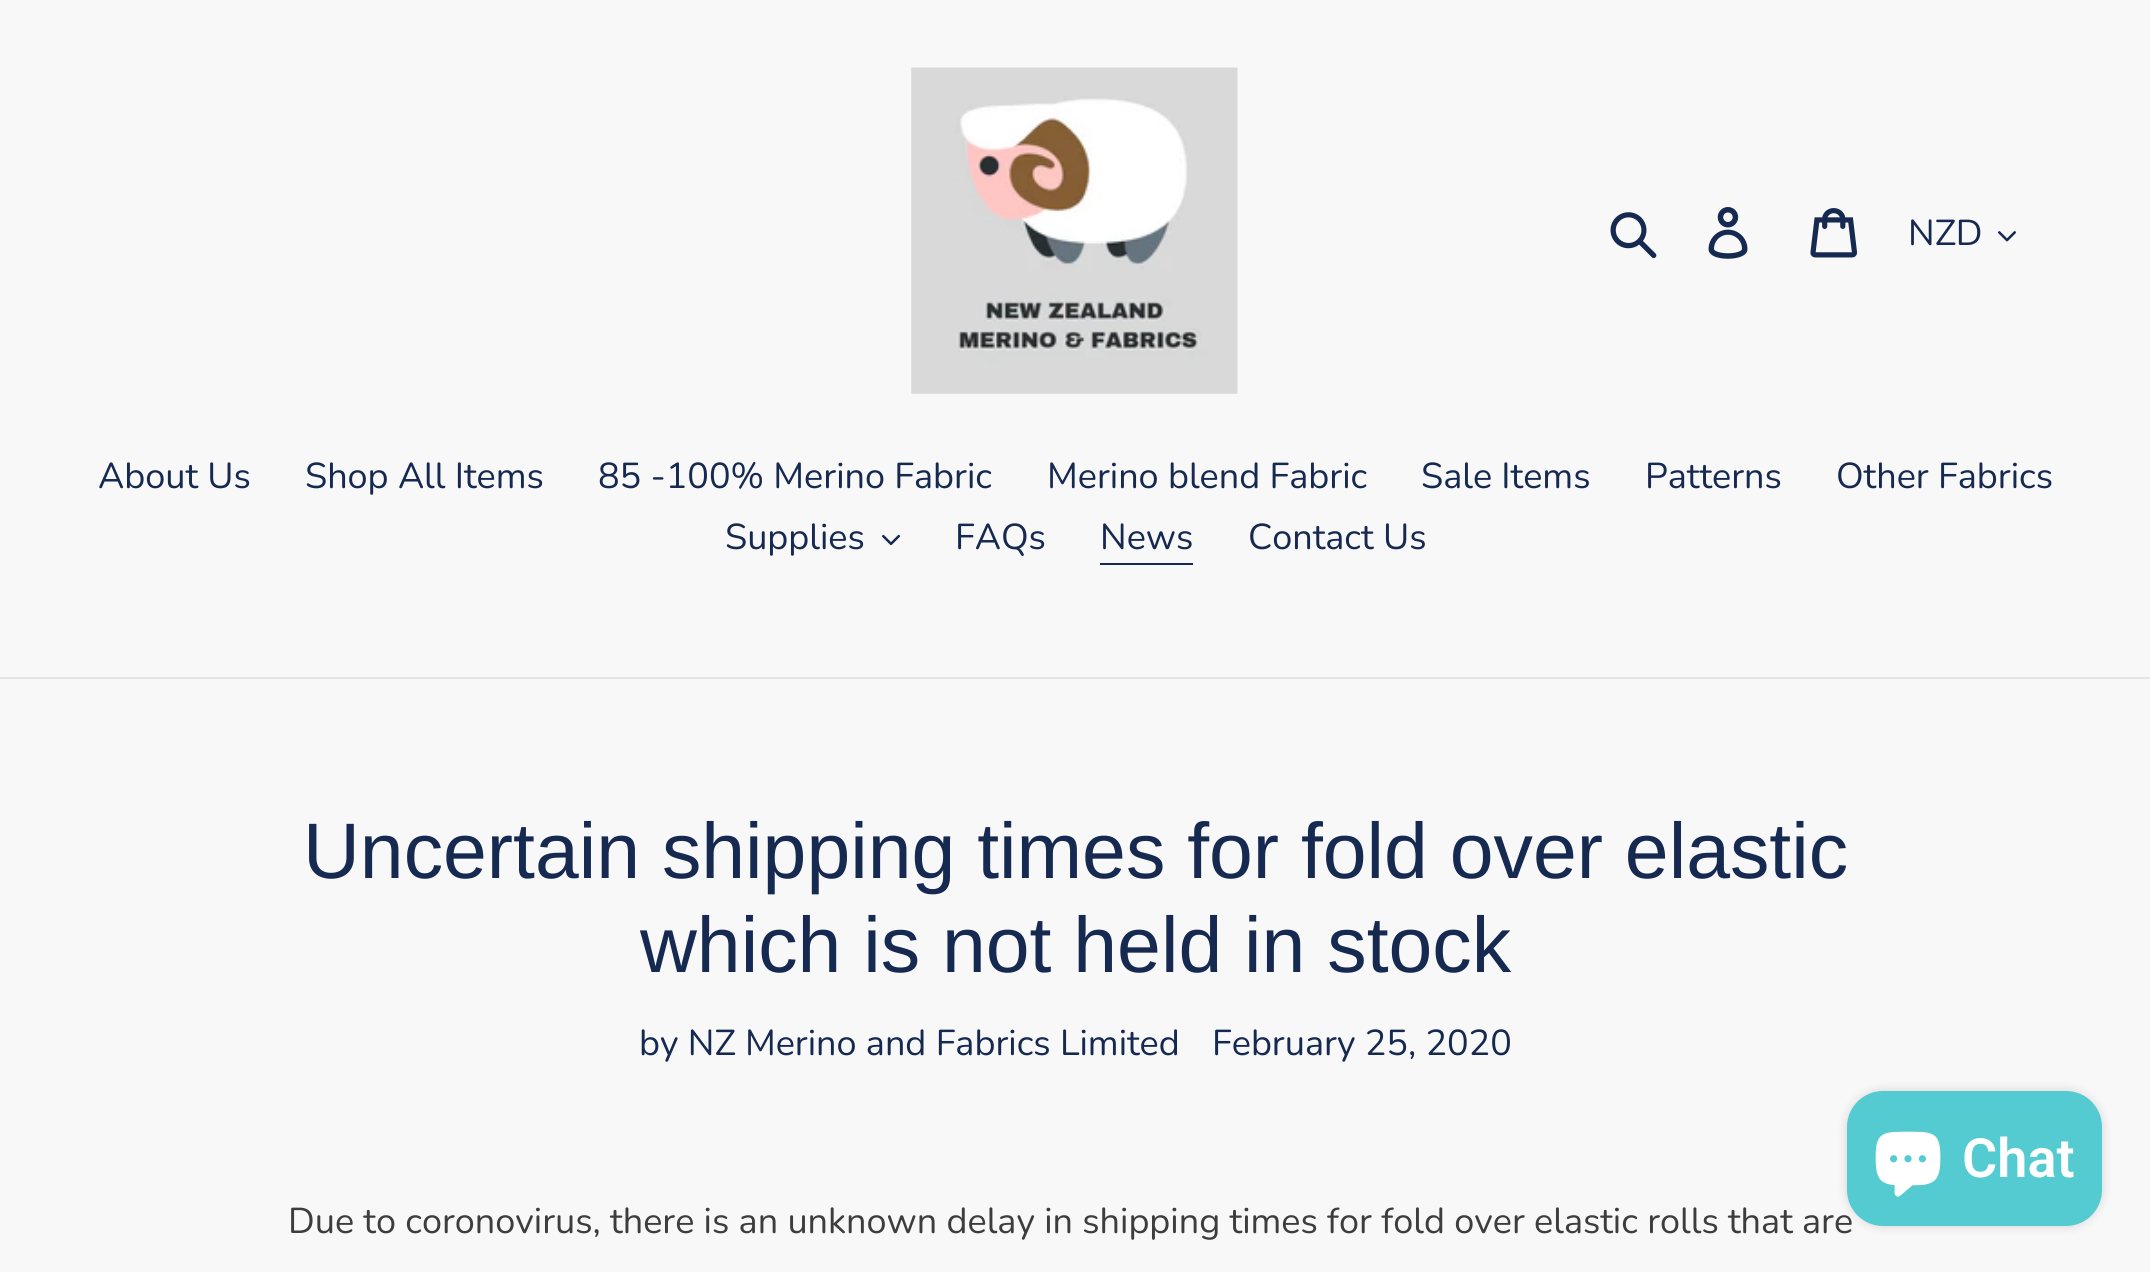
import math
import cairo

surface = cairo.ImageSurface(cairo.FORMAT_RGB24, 2150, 1272)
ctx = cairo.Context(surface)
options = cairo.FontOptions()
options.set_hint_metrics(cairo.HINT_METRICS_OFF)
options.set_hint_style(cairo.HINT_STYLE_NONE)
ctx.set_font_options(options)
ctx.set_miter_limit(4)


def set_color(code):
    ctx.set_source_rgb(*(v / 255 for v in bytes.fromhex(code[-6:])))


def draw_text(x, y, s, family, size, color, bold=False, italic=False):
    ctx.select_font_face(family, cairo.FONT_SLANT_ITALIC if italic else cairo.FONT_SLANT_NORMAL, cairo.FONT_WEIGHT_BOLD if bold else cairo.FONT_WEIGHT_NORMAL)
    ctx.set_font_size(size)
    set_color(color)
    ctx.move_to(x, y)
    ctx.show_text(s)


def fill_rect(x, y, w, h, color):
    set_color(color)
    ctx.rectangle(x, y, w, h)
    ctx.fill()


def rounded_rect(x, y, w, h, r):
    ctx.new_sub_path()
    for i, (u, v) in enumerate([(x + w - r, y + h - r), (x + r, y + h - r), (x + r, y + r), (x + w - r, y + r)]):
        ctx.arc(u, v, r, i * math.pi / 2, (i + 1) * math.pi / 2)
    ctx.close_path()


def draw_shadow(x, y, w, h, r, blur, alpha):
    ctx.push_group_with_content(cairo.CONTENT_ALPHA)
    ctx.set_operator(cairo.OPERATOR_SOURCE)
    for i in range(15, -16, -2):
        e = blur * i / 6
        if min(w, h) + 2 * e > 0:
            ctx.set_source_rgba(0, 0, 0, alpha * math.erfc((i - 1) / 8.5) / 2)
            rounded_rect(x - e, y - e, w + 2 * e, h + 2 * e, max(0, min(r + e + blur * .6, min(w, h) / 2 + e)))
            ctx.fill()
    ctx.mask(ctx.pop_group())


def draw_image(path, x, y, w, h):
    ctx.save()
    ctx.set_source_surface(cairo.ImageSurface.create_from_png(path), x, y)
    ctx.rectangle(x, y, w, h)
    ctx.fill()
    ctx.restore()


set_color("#f8f8f8")
ctx.paint()
draw_image("assets/img1.png", 911, 67, 327, 327)
draw_image("assets/img2.png", 1610, 212, 47, 47)
draw_image("assets/img3.png", 1708, 207, 40, 52)
draw_image("assets/img4.png", 1810, 208, 48, 50)
draw_text(1908, 245, "NZD", "Nunito", 36, "#162950")
draw_image("assets/img5.png", 1998, 231, 18, 11)
fill_rect(0, 677, 2150, 2, "#e4e4e4")
draw_text(98, 488, "About Us", "Nunito", 36, "#162950")
draw_text(305, 488, "Shop All Items", "Nunito", 36, "#162950")
draw_text(598, 488, "85 -100% Merino Fabric", "Nunito", 36, "#162950")
draw_text(1047, 488, "Merino blend Fabric", "Nunito", 36, "#162950")
draw_text(1421, 488, "Sale Items", "Nunito", 36, "#162950")
draw_text(1645, 488, "Patterns", "Nunito", 36, "#162950")
draw_text(1836, 488, "Other Fabrics", "Nunito", 36, "#162950")
draw_text(725, 549, "Supplies", "Nunito", 36, "#162950")
draw_image("assets/img6.png", 882, 534, 18, 12)
draw_text(955, 549, "FAQs", "Nunito", 36, "#162950")
draw_text(1100, 549, "News", "Nunito", 36, "#162950")
fill_rect(1100, 563, 93, 2, "#162950")
draw_text(1248, 549, "Contact Us", "Nunito", 36, "#162950")
draw_text(303, 878, "Uncertain shipping times for fold over elastic", "Arimo", 78.75, "#162950")
draw_text(640, 972, "which is not held in stock", "Arimo", 78.75, "#162950")
draw_text(639, 1055, "by NZ Merino and Fabrics Limited", "Nunito", 36, "#162950")
draw_text(1212, 1055, "February 25, 2020", "Nunito", 36, "#162950")
draw_text(288, 1233, "Due to coronovirus, there is an unknown delay in shipping times for fold over elastic rolls that are", "Nunito", 36, "#3d3d3d")
set_color("#000000")
draw_shadow(1847, 1091, 255, 135, 36, 5.5, 0.15)
set_color("#53cbd1")
rounded_rect(1847, 1091, 255, 135, 36)
ctx.fill()
draw_image("assets/img7.png", 1875, 1131, 66, 66)
draw_text(1962, 1177, "Chat", "Roboto SemiBold", 54, "#ffffff")
surface.write_to_png("output.png")
